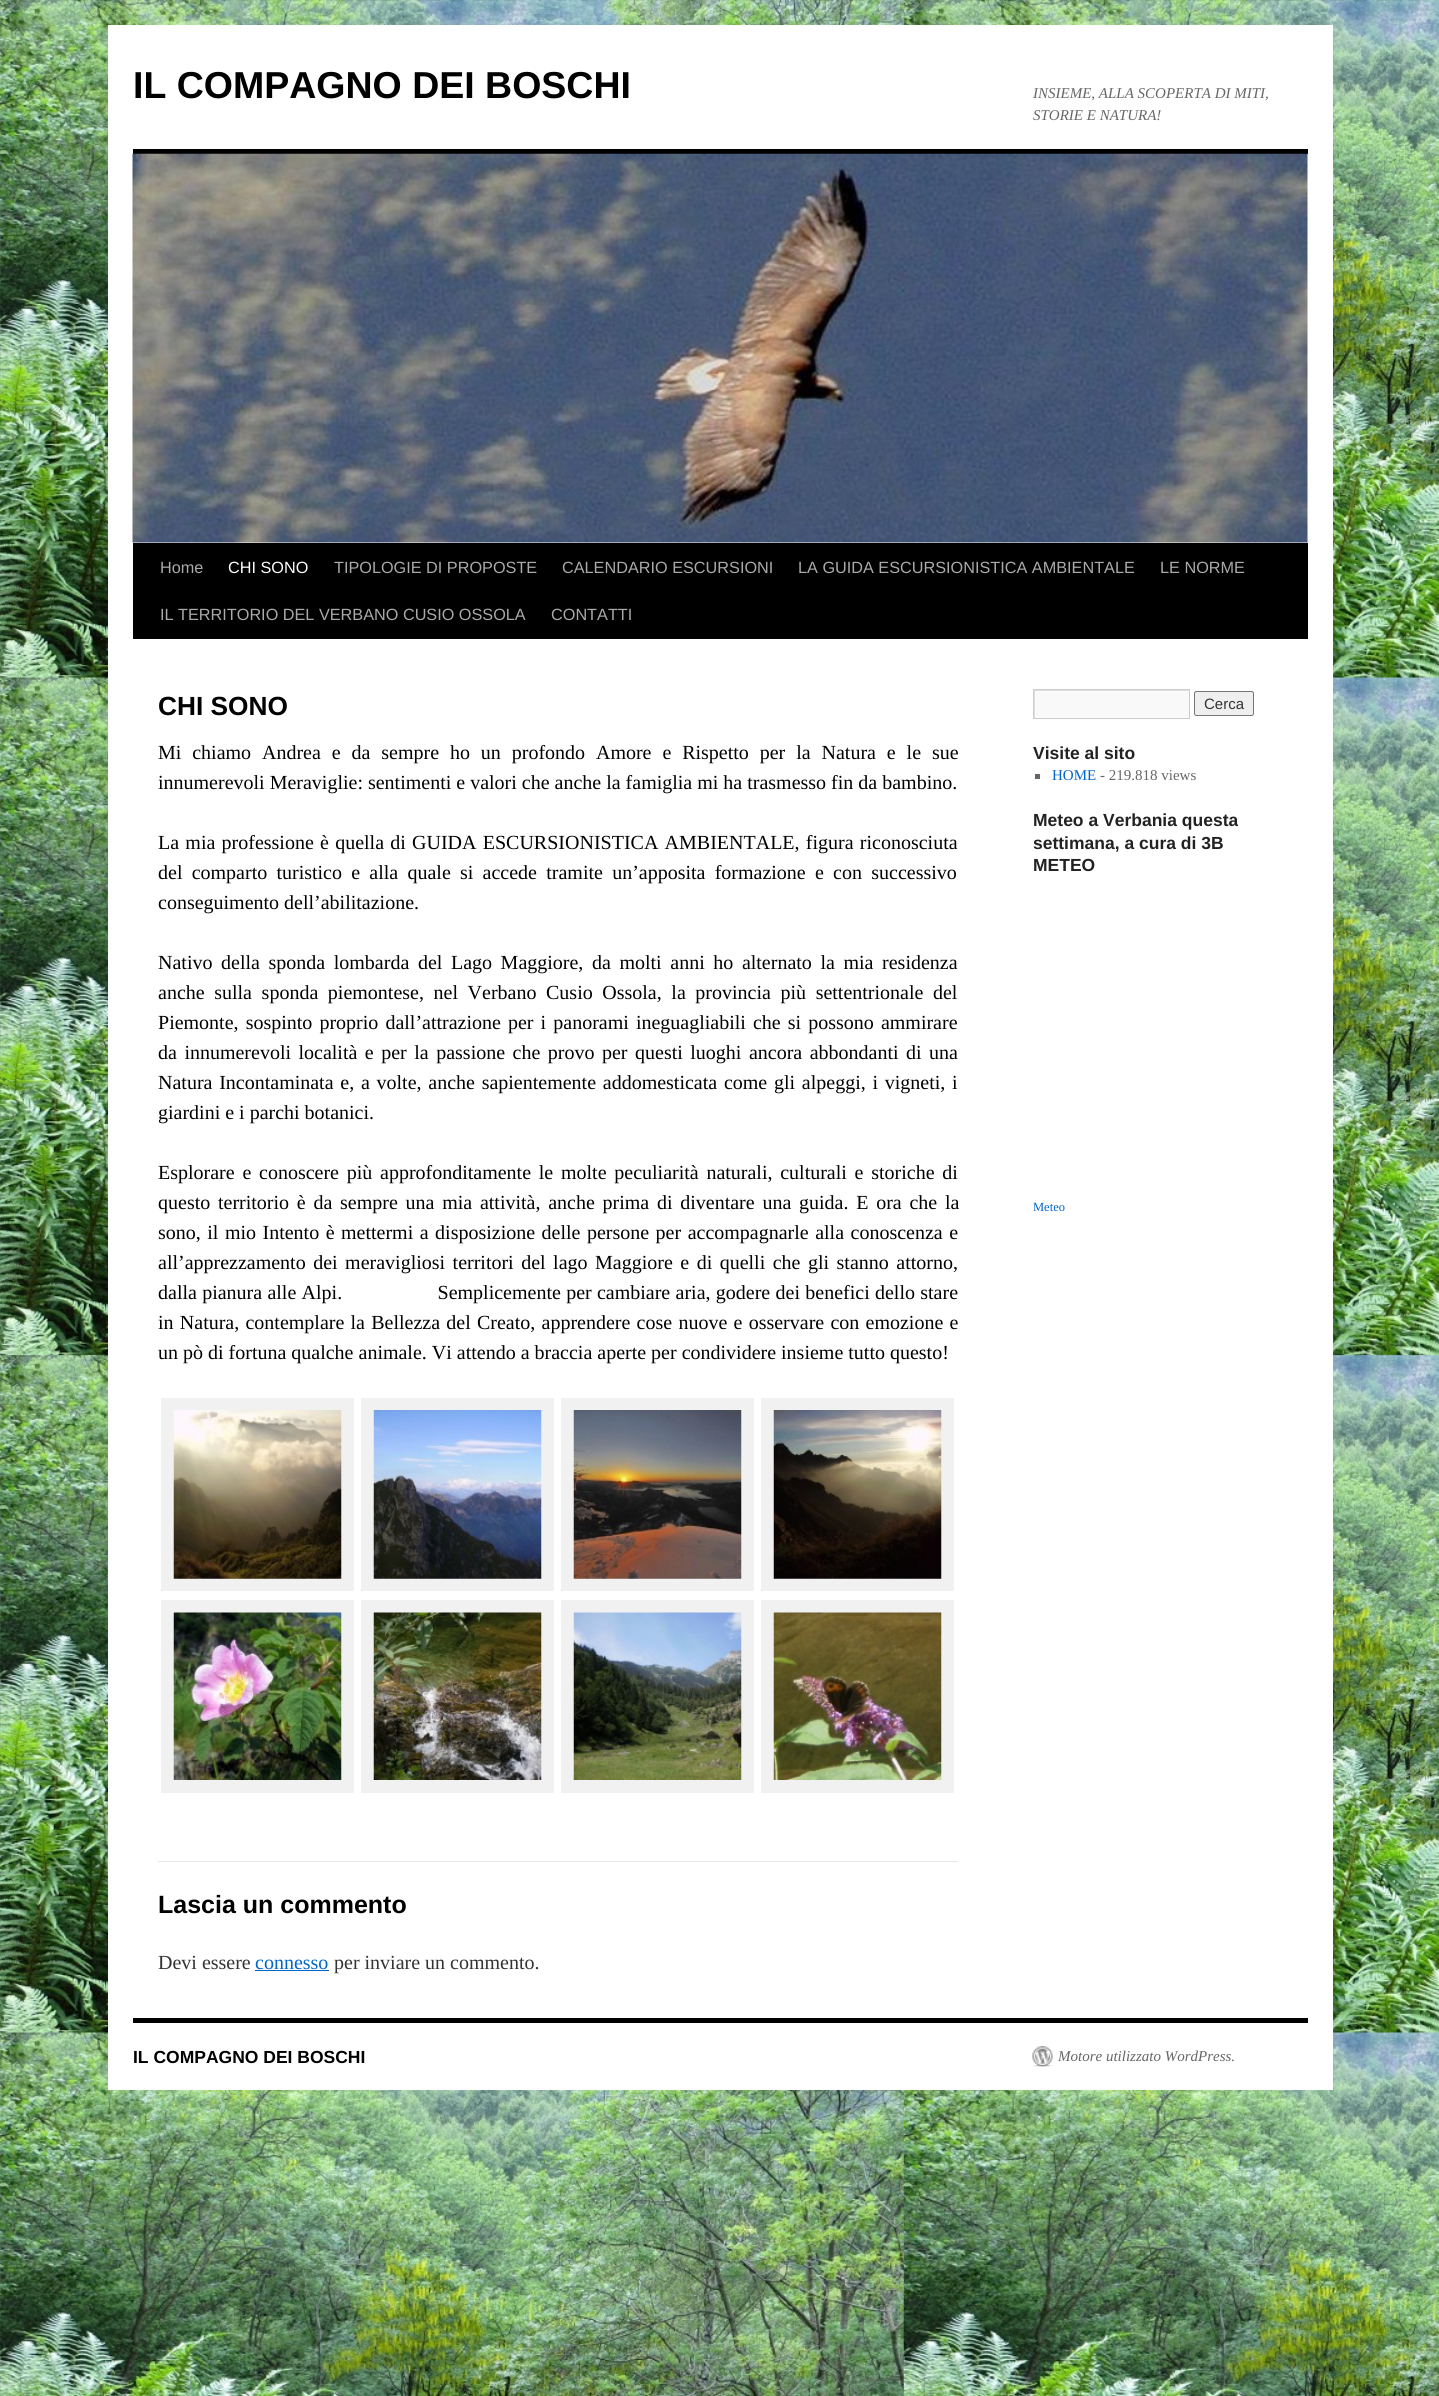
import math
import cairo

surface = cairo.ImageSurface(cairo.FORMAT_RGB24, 1439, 2396)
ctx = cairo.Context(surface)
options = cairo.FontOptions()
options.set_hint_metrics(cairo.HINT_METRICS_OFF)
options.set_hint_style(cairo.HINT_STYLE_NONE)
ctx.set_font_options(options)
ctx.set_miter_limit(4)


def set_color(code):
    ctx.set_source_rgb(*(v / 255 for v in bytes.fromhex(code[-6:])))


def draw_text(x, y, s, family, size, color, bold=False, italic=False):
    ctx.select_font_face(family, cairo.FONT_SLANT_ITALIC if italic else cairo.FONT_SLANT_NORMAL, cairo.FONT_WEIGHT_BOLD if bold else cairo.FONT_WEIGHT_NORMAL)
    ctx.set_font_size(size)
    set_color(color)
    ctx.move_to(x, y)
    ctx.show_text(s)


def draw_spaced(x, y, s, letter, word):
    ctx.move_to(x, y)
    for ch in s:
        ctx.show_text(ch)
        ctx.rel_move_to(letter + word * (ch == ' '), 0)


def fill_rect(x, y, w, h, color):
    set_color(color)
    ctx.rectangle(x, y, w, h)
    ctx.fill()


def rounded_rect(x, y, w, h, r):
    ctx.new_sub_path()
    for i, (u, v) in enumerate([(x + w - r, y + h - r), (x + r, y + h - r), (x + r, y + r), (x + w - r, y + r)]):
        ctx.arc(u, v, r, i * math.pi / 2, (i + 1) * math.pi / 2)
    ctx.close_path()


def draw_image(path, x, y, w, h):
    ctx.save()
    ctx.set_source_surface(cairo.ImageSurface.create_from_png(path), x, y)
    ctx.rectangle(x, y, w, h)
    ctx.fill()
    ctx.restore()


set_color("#ffffff")
ctx.paint()
draw_image("assets/img1.png", 0, 0, 1439, 2396)
fill_rect(108, 25, 1225, 2065, "#ffffff")
draw_text(133, 98, "IL COMPAGNO DEI BOSCHI", "Liberation Sans", 37.5, "#000000", bold=True)
draw_text(1033, 98, "INSIEME, ALLA SCOPERTA DI MITI,", "Liberation Serif", 15, "#666666", italic=True)
draw_text(1033, 120, "STORIE E NATURA!", "Liberation Serif", 15, "#666666", italic=True)
fill_rect(133, 149, 1175, 5, "#000000")
fill_rect(133, 543, 1175, 96, "#000000")
draw_image("assets/img2.png", 132, 153, 1176, 390)
draw_text(160, 573, "Home", "Liberation Sans", 16.25, "#aaaaaa")
draw_text(228, 573, "CHI SONO", "Liberation Sans", 16.25, "#ffffff")
draw_text(334, 573, "TIPOLOGIE DI PROPOSTE", "Liberation Sans", 16.25, "#aaaaaa")
draw_text(562, 573, "CALENDARIO ESCURSIONI", "Liberation Sans", 16.25, "#aaaaaa")
draw_text(798, 573, "LA GUIDA ESCURSIONISTICA AMBIENTALE", "Liberation Sans", 16.25, "#aaaaaa")
draw_text(1160, 573, "LE NORME", "Liberation Sans", 16.25, "#aaaaaa")
draw_text(160, 620, "IL TERRITORIO DEL VERBANO CUSIO OSSOLA", "Liberation Sans", 16.25, "#aaaaaa")
draw_text(551, 620, "CONTATTI", "Liberation Sans", 16.25, "#aaaaaa")
draw_text(158, 715, "CHI SONO", "Liberation Sans", 26.25, "#000000", bold=True)
ctx.select_font_face("Liberation Serif")
ctx.set_font_size(20)
draw_spaced(158, 759, "Mi chiamo Andrea e da sempre ho un profondo Amore e Rispetto per la Natura e le sue", 0, 5.9)
draw_text(158, 789, "innumerevoli Meraviglie: sentimenti e valori che anche la famiglia mi ha trasmesso fin da bambino.", "Liberation Serif", 20, "#000000")
draw_spaced(158, 849, "La mia professione è quella di GUIDA ESCURSIONISTICA AMBIENTALE, figura riconosciuta", 0, 1.25)
draw_spaced(158, 879, "del comparto turistico e alla quale si accede tramite un’apposita formazione e con successivo", 0, 4.25)
draw_text(158, 909, "conseguimento dell’abilitazione.", "Liberation Serif", 20, "#000000")
draw_spaced(158, 969, "Nativo della sponda lombarda del Lago Maggiore, da molti anni ho alternato la mia residenza", 0, 3.6)
draw_spaced(158, 999, "anche sulla sponda piemontese, nel Verbano Cusio Ossola, la provincia più settentrionale del", 0, 4.6)
draw_spaced(158, 1029, "Piemonte, sospinto proprio dall’attrazione per i panorami ineguagliabili che si possono ammirare", 0, 2.1)
draw_spaced(158, 1059, "da innumerevoli località e per la passione che provo per questi luoghi ancora abbondanti di una", 0, 2.5)
draw_spaced(158, 1089, "Natura Incontaminata e, a volte, anche sapientemente addomesticata come gli alpeggi, i vigneti, i", 0, 1.75)
draw_text(158, 1119, "giardini e i parchi botanici.", "Liberation Serif", 20, "#000000")
draw_spaced(158, 1179, "Esplorare e conoscere più approfonditamente le molte peculiarità naturali, culturali e storiche di", 0, 2.75)
draw_spaced(158, 1209, "questo territorio è da sempre una mia attività, anche prima di diventare una guida. E ora che la", 0, 2.75)
draw_spaced(158, 1239, "sono, il mio Intento è mettermi a disposizione delle persone per accompagnarle alla conoscenza e", 0, 1.5)
draw_spaced(158, 1269, "all’apprezzamento dei meravigliosi territori del lago Maggiore e di quelli che gli stanno attorno,", 0, 2.5)
draw_spaced(158, 1299, "dalla pianura alle Alpi.                  Semplicemente per cambiare aria, godere dei benefici dello stare", 0, 0.3)
draw_spaced(158, 1329, "in Natura, contemplare la Bellezza del Creato, apprendere cose nuove e osservare con emozione e", 0, 1.25)
draw_text(158, 1359, "un pò di fortuna qualche animale. Vi attendo a braccia aperte per condividere insieme tutto questo!", "Liberation Serif", 20, "#000000")
ctx.rectangle(167.5, 1404.5, 180, 180)
set_color("#f1f1f1")
ctx.set_line_width(13)
ctx.stroke()
draw_image("assets/img3.png", 173, 1410, 169, 169)
ctx.rectangle(367.5, 1404.5, 180, 180)
ctx.stroke()
draw_image("assets/img4.png", 373, 1410, 169, 169)
ctx.rectangle(567.5, 1404.5, 180, 180)
ctx.stroke()
draw_image("assets/img5.png", 573, 1410, 169, 169)
ctx.rectangle(767.5, 1404.5, 180, 180)
ctx.stroke()
draw_image("assets/img6.png", 773, 1410, 169, 169)
ctx.rectangle(167.5, 1606.5, 180, 180)
ctx.stroke()
draw_image("assets/img7.png", 173, 1612, 169, 168)
ctx.rectangle(367.5, 1606.5, 180, 180)
ctx.stroke()
draw_image("assets/img8.png", 373, 1612, 169, 168)
ctx.rectangle(567.5, 1606.5, 180, 180)
ctx.stroke()
draw_image("assets/img9.png", 573, 1612, 169, 168)
ctx.rectangle(767.5, 1606.5, 180, 180)
ctx.stroke()
draw_image("assets/img10.png", 773, 1612, 169, 168)
fill_rect(158, 1861, 800, 1, "#e7e7e7")
draw_text(158, 1913, "Lascia un commento", "Liberation Sans", 25, "#000000", bold=True)
draw_text(158, 1969, "Devi essere", "Liberation Serif", 20, "#333333")
draw_text(255, 1969, "connesso", "Liberation Serif", 20, "#0066cc")
fill_rect(255, 1970, 74, 1, "#0066cc")
draw_text(334, 1969, "per inviare un commento.", "Liberation Serif", 20, "#333333")
fill_rect(1035, 691, 154, 27, "#f9f9f9")
ctx.save()
ctx.rectangle(1034, 690, 155, 28)
ctx.clip()
set_color("#e0e0e0")
ctx.set_fill_rule(cairo.FILL_RULE_EVEN_ODD)
ctx.new_path()
ctx.move_to(910, 566)
ctx.line_to(1312, 566)
ctx.line_to(1312, 841)
ctx.line_to(910, 841)
ctx.close_path()
ctx.move_to(1035, 691)
ctx.line_to(1190, 691)
ctx.line_to(1190, 719)
ctx.line_to(1035, 719)
ctx.close_path()
ctx.fill()
ctx.restore()
ctx.rectangle(1033.5, 689.5, 156, 29)
set_color("#cccccc")
ctx.set_line_width(1)
ctx.stroke()
set_color("#efefef")
rounded_rect(1194.5, 691.5, 59, 24, 2)
ctx.fill_preserve()
set_color("#767676")
ctx.stroke()
draw_text(1204, 709, "Cerca", "Liberation Sans", 15, "#333333")
draw_text(1033, 759, "Visite al sito", "Liberation Sans", 17.5, "#222222", bold=True)
fill_rect(1035, 774, 5, 5, "#666666")
draw_text(1052, 780, "HOME", "Liberation Serif", 15, "#0066cc")
draw_text(1100, 780, "- 219.818 views", "Liberation Serif", 15, "#666666")
draw_text(1033, 826, "Meteo a Verbania questa", "Liberation Sans", 17.5, "#222222", bold=True)
draw_text(1033, 849, "settimana, a cura di 3B", "Liberation Sans", 17.5, "#222222", bold=True)
draw_text(1033, 871, "METEO", "Liberation Sans", 17.5, "#222222", bold=True)
draw_text(1033, 1211, "Meteo", "Liberation Serif", 12.5, "#0066cc")
fill_rect(133, 2018, 1175, 5, "#000000")
draw_text(133, 2063, "IL COMPAGNO DEI BOSCHI", "Liberation Sans", 17.5, "#000000", bold=True)
draw_image("assets/img11.png", 1032, 2046, 21, 21)
draw_text(1058, 2061, "Motore utilizzato WordPress.", "Liberation Serif", 15, "#666666", italic=True)
surface.write_to_png("output.png")
